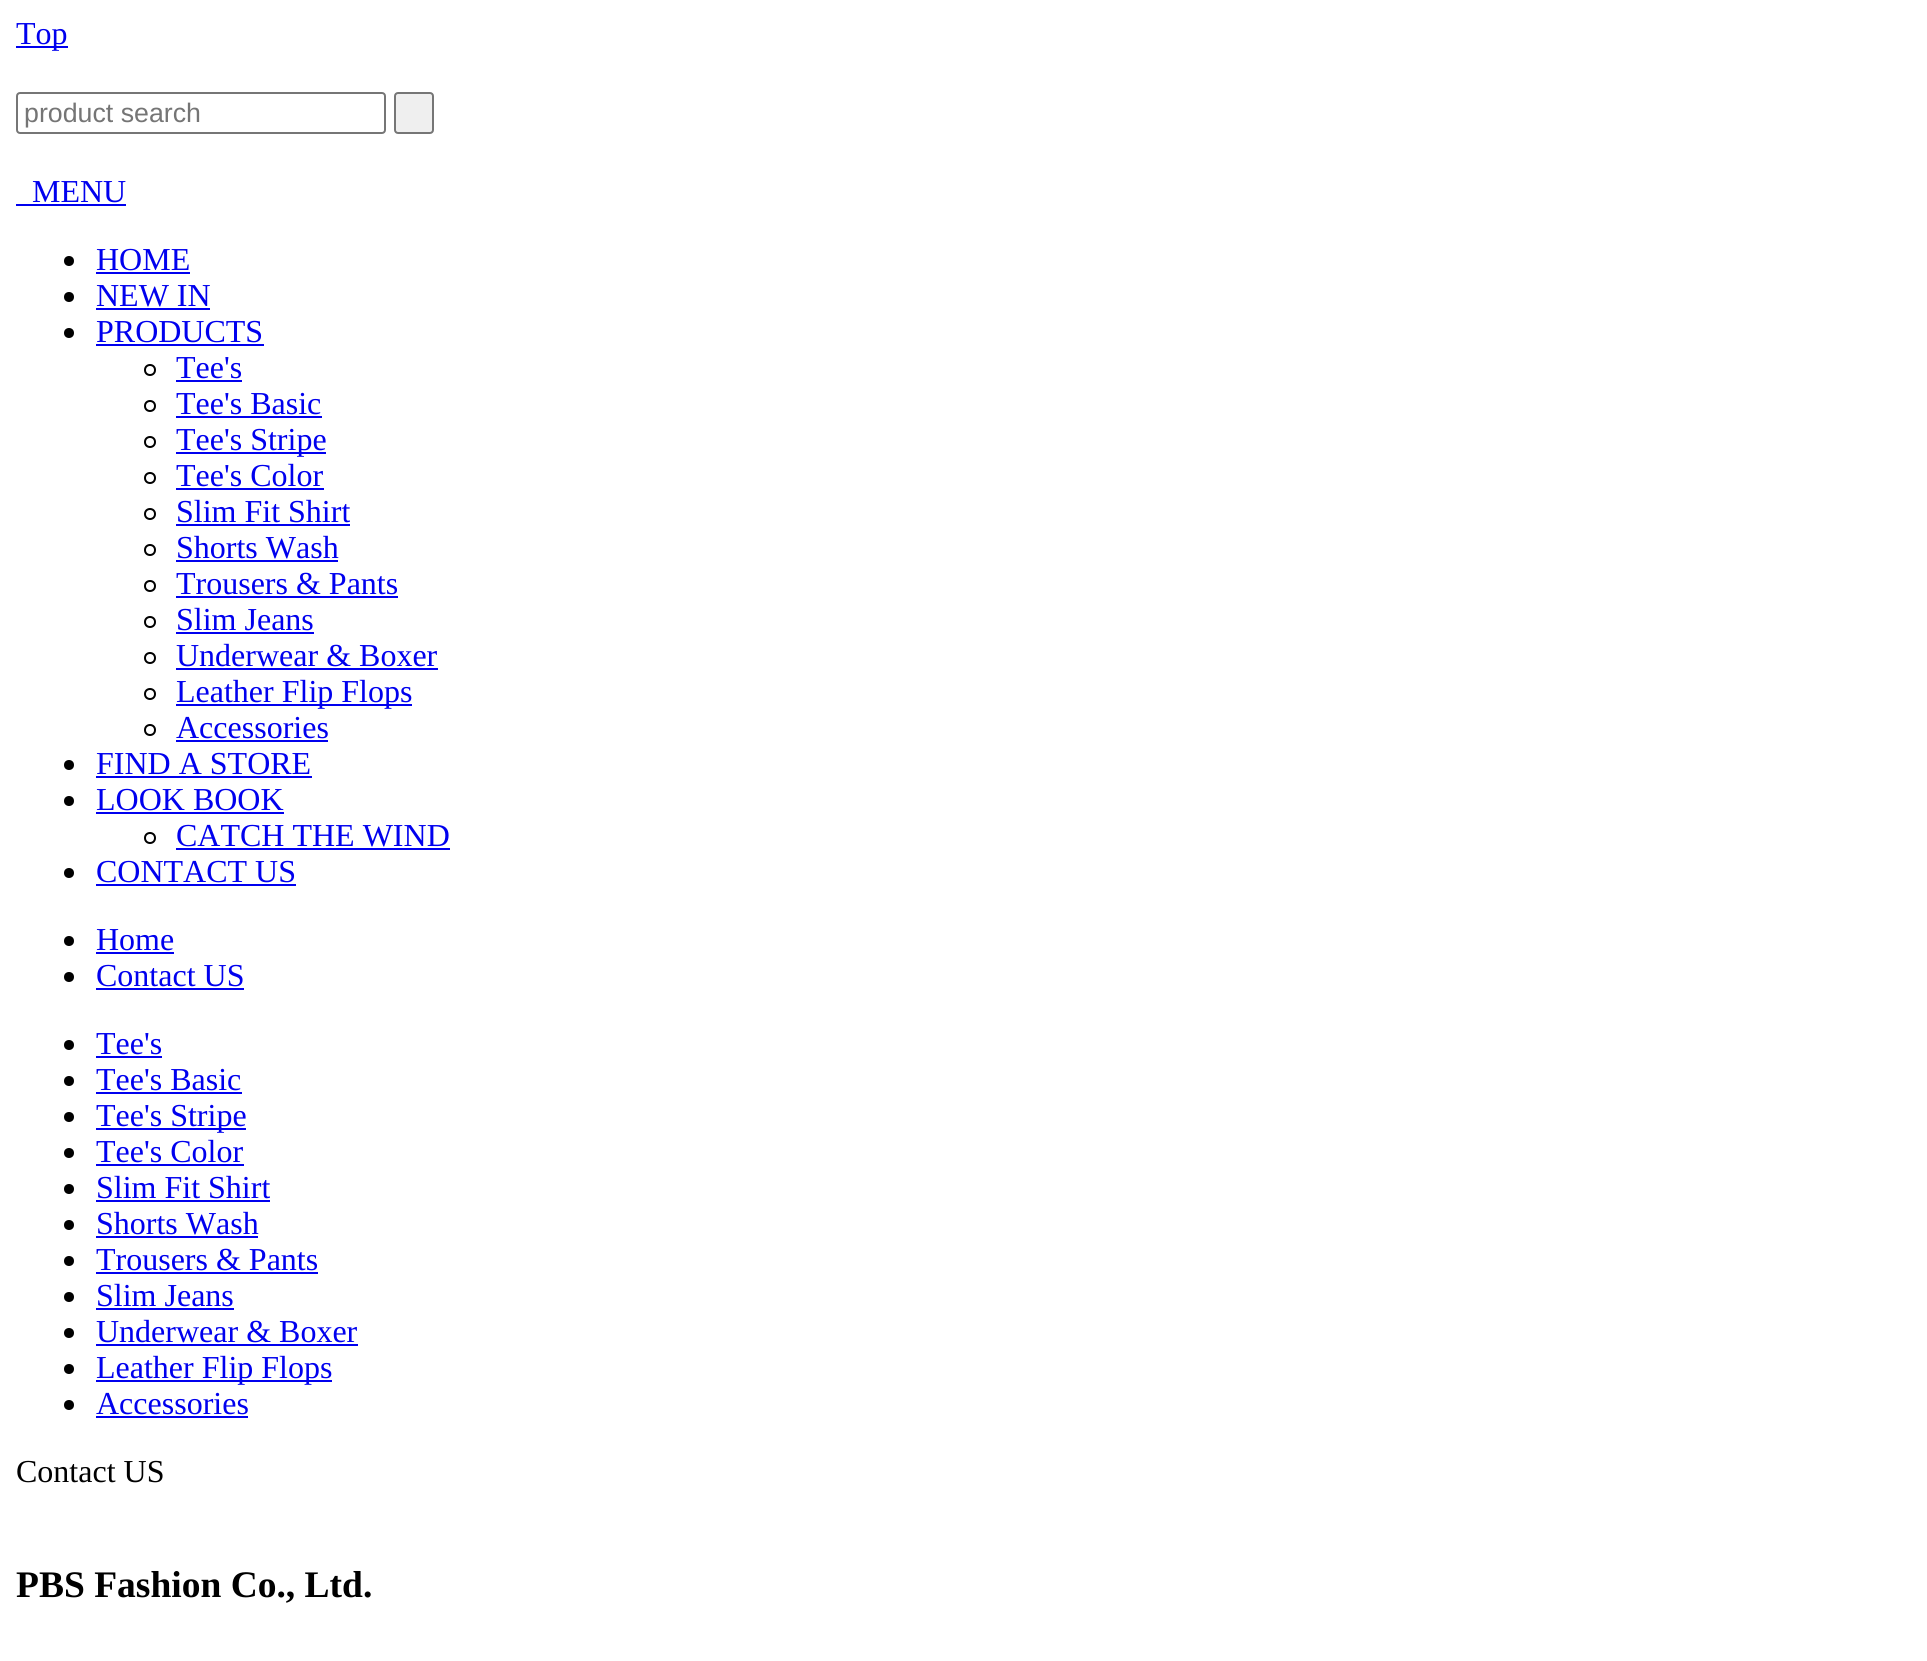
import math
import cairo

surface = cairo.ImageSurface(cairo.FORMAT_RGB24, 1927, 1661)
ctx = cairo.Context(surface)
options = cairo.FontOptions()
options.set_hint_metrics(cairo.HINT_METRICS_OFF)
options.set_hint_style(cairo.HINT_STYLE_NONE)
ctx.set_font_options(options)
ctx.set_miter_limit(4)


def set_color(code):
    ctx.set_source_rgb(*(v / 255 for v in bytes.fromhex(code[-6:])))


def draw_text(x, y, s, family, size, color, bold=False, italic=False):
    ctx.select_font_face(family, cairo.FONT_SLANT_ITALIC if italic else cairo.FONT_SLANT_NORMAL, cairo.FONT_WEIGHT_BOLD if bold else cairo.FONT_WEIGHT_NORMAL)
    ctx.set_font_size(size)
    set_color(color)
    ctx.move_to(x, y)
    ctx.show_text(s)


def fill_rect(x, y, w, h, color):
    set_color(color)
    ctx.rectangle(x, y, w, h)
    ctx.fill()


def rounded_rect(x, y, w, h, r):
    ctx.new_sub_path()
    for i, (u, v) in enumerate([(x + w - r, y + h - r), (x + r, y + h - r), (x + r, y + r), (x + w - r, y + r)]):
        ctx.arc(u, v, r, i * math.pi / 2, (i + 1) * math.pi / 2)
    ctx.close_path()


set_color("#ffffff")
ctx.paint()
fill_rect(16, 46, 52, 2, "#0000ee")
draw_text(16, 44, "Top", "Liberation Serif", 32, "#0000ee")
rounded_rect(17, 93, 368, 40, 3)
set_color("#767676")
ctx.stroke()
draw_text(24, 122, "product search", "Liberation Sans", 26.75, "#757575")
set_color("#efefef")
rounded_rect(395, 93, 38, 40, 3)
ctx.fill_preserve()
set_color("#767676")
ctx.stroke()
draw_text(32, 202, "MENU", "Liberation Serif", 32, "#0000ee")
fill_rect(16, 204, 110, 2, "#0000ee")
set_color("#000000")
ctx.new_path()
ctx.arc(69, 261, 5, 0, 2 * math.pi)
ctx.fill()
draw_text(96, 270, "HOME", "Liberation Serif", 32, "#0000ee")
fill_rect(96, 272, 94, 2, "#0000ee")
set_color("#000000")
ctx.new_path()
ctx.arc(69, 297, 5, 0, 2 * math.pi)
ctx.fill()
draw_text(96, 306, "NEW IN", "Liberation Serif", 32, "#0000ee")
fill_rect(96, 308, 114, 2, "#0000ee")
set_color("#000000")
ctx.new_path()
ctx.arc(69, 333, 5, 0, 2 * math.pi)
ctx.fill()
draw_text(96, 342, "PRODUCTS", "Liberation Serif", 32, "#0000ee")
fill_rect(96, 344, 168, 2, "#0000ee")
ctx.new_path()
ctx.arc(150, 370, 5, 0, 2 * math.pi)
set_color("#000000")
ctx.stroke()
draw_text(176, 378, "Tee's", "Liberation Serif", 32, "#0000ee")
fill_rect(176, 380, 66, 2, "#0000ee")
ctx.new_path()
ctx.arc(150, 406, 5, 0, 2 * math.pi)
set_color("#000000")
ctx.stroke()
draw_text(176, 414, "Tee's Basic", "Liberation Serif", 32, "#0000ee")
fill_rect(176, 416, 146, 2, "#0000ee")
ctx.new_path()
ctx.arc(150, 442, 5, 0, 2 * math.pi)
set_color("#000000")
ctx.stroke()
fill_rect(176, 452, 150, 2, "#0000ee")
draw_text(176, 450, "Tee's Stripe", "Liberation Serif", 32, "#0000ee")
ctx.new_path()
ctx.arc(150, 478, 5, 0, 2 * math.pi)
set_color("#000000")
ctx.stroke()
draw_text(176, 486, "Tee's Color", "Liberation Serif", 32, "#0000ee")
fill_rect(176, 488, 148, 2, "#0000ee")
ctx.new_path()
ctx.arc(150, 514, 5, 0, 2 * math.pi)
set_color("#000000")
ctx.stroke()
draw_text(176, 522, "Slim Fit Shirt", "Liberation Serif", 32, "#0000ee")
fill_rect(176, 524, 174, 2, "#0000ee")
ctx.new_path()
ctx.arc(150, 550, 5, 0, 2 * math.pi)
set_color("#000000")
ctx.stroke()
draw_text(176, 558, "Shorts Wash", "Liberation Serif", 32, "#0000ee")
fill_rect(176, 560, 162, 2, "#0000ee")
ctx.new_path()
ctx.arc(150, 586, 5, 0, 2 * math.pi)
set_color("#000000")
ctx.stroke()
draw_text(176, 594, "Trousers & Pants", "Liberation Serif", 32, "#0000ee")
fill_rect(176, 596, 222, 2, "#0000ee")
ctx.new_path()
ctx.arc(150, 622, 5, 0, 2 * math.pi)
set_color("#000000")
ctx.stroke()
draw_text(176, 630, "Slim Jeans", "Liberation Serif", 32, "#0000ee")
fill_rect(176, 632, 138, 2, "#0000ee")
ctx.new_path()
ctx.arc(150, 658, 5, 0, 2 * math.pi)
set_color("#000000")
ctx.stroke()
draw_text(176, 666, "Underwear & Boxer", "Liberation Serif", 32, "#0000ee")
fill_rect(176, 668, 262, 2, "#0000ee")
ctx.new_path()
ctx.arc(150, 694, 5, 0, 2 * math.pi)
set_color("#000000")
ctx.stroke()
fill_rect(176, 704, 236, 2, "#0000ee")
draw_text(176, 702, "Leather Flip Flops", "Liberation Serif", 32, "#0000ee")
ctx.new_path()
ctx.arc(150, 730, 5, 0, 2 * math.pi)
set_color("#000000")
ctx.stroke()
draw_text(176, 738, "Accessories", "Liberation Serif", 32, "#0000ee")
fill_rect(176, 740, 152, 2, "#0000ee")
set_color("#000000")
ctx.new_path()
ctx.arc(69, 765, 5, 0, 2 * math.pi)
ctx.fill()
draw_text(96, 774, "FIND A STORE", "Liberation Serif", 32, "#0000ee")
fill_rect(96, 776, 216, 2, "#0000ee")
set_color("#000000")
ctx.new_path()
ctx.arc(69, 801, 5, 0, 2 * math.pi)
ctx.fill()
draw_text(96, 810, "LOOK BOOK", "Liberation Serif", 32, "#0000ee")
fill_rect(96, 812, 188, 2, "#0000ee")
ctx.new_path()
ctx.arc(150, 838, 5, 0, 2 * math.pi)
set_color("#000000")
ctx.stroke()
draw_text(176, 846, "CATCH THE WIND", "Liberation Serif", 32, "#0000ee")
fill_rect(176, 848, 274, 2, "#0000ee")
set_color("#000000")
ctx.new_path()
ctx.arc(69, 873, 5, 0, 2 * math.pi)
ctx.fill()
draw_text(96, 882, "CONTACT US", "Liberation Serif", 32, "#0000ee")
fill_rect(96, 884, 200, 2, "#0000ee")
set_color("#000000")
ctx.new_path()
ctx.arc(69, 941, 5, 0, 2 * math.pi)
ctx.fill()
draw_text(96, 950, "Home", "Liberation Serif", 32, "#0000ee")
fill_rect(96, 952, 78, 2, "#0000ee")
set_color("#000000")
ctx.new_path()
ctx.arc(69, 977, 5, 0, 2 * math.pi)
ctx.fill()
draw_text(96, 986, "Contact US", "Liberation Serif", 32, "#0000ee")
fill_rect(96, 988, 148, 2, "#0000ee")
set_color("#000000")
ctx.new_path()
ctx.arc(69, 1045, 5, 0, 2 * math.pi)
ctx.fill()
draw_text(96, 1054, "Tee's", "Liberation Serif", 32, "#0000ee")
fill_rect(96, 1056, 66, 2, "#0000ee")
set_color("#000000")
ctx.new_path()
ctx.arc(69, 1081, 5, 0, 2 * math.pi)
ctx.fill()
draw_text(96, 1090, "Tee's Basic", "Liberation Serif", 32, "#0000ee")
fill_rect(96, 1092, 146, 2, "#0000ee")
set_color("#000000")
ctx.new_path()
ctx.arc(69, 1117, 5, 0, 2 * math.pi)
ctx.fill()
fill_rect(96, 1128, 150, 2, "#0000ee")
draw_text(96, 1126, "Tee's Stripe", "Liberation Serif", 32, "#0000ee")
set_color("#000000")
ctx.new_path()
ctx.arc(69, 1153, 5, 0, 2 * math.pi)
ctx.fill()
draw_text(96, 1162, "Tee's Color", "Liberation Serif", 32, "#0000ee")
fill_rect(96, 1164, 148, 2, "#0000ee")
set_color("#000000")
ctx.new_path()
ctx.arc(69, 1189, 5, 0, 2 * math.pi)
ctx.fill()
draw_text(96, 1198, "Slim Fit Shirt", "Liberation Serif", 32, "#0000ee")
fill_rect(96, 1200, 174, 2, "#0000ee")
set_color("#000000")
ctx.new_path()
ctx.arc(69, 1225, 5, 0, 2 * math.pi)
ctx.fill()
draw_text(96, 1234, "Shorts Wash", "Liberation Serif", 32, "#0000ee")
fill_rect(96, 1236, 162, 2, "#0000ee")
set_color("#000000")
ctx.new_path()
ctx.arc(69, 1261, 5, 0, 2 * math.pi)
ctx.fill()
draw_text(96, 1270, "Trousers & Pants", "Liberation Serif", 32, "#0000ee")
fill_rect(96, 1272, 222, 2, "#0000ee")
set_color("#000000")
ctx.new_path()
ctx.arc(69, 1297, 5, 0, 2 * math.pi)
ctx.fill()
draw_text(96, 1306, "Slim Jeans", "Liberation Serif", 32, "#0000ee")
fill_rect(96, 1308, 138, 2, "#0000ee")
set_color("#000000")
ctx.new_path()
ctx.arc(69, 1333, 5, 0, 2 * math.pi)
ctx.fill()
draw_text(96, 1342, "Underwear & Boxer", "Liberation Serif", 32, "#0000ee")
fill_rect(96, 1344, 262, 2, "#0000ee")
set_color("#000000")
ctx.new_path()
ctx.arc(69, 1369, 5, 0, 2 * math.pi)
ctx.fill()
fill_rect(96, 1380, 236, 2, "#0000ee")
draw_text(96, 1378, "Leather Flip Flops", "Liberation Serif", 32, "#0000ee")
set_color("#000000")
ctx.new_path()
ctx.arc(69, 1405, 5, 0, 2 * math.pi)
ctx.fill()
draw_text(96, 1414, "Accessories", "Liberation Serif", 32, "#0000ee")
fill_rect(96, 1416, 152, 2, "#0000ee")
draw_text(16, 1482, "Contact US", "Liberation Serif", 32, "#000000")
draw_text(16, 1597, "PBS Fashion Co., Ltd.", "Liberation Serif", 37.5, "#000000", bold=True)
surface.write_to_png("output.png")
